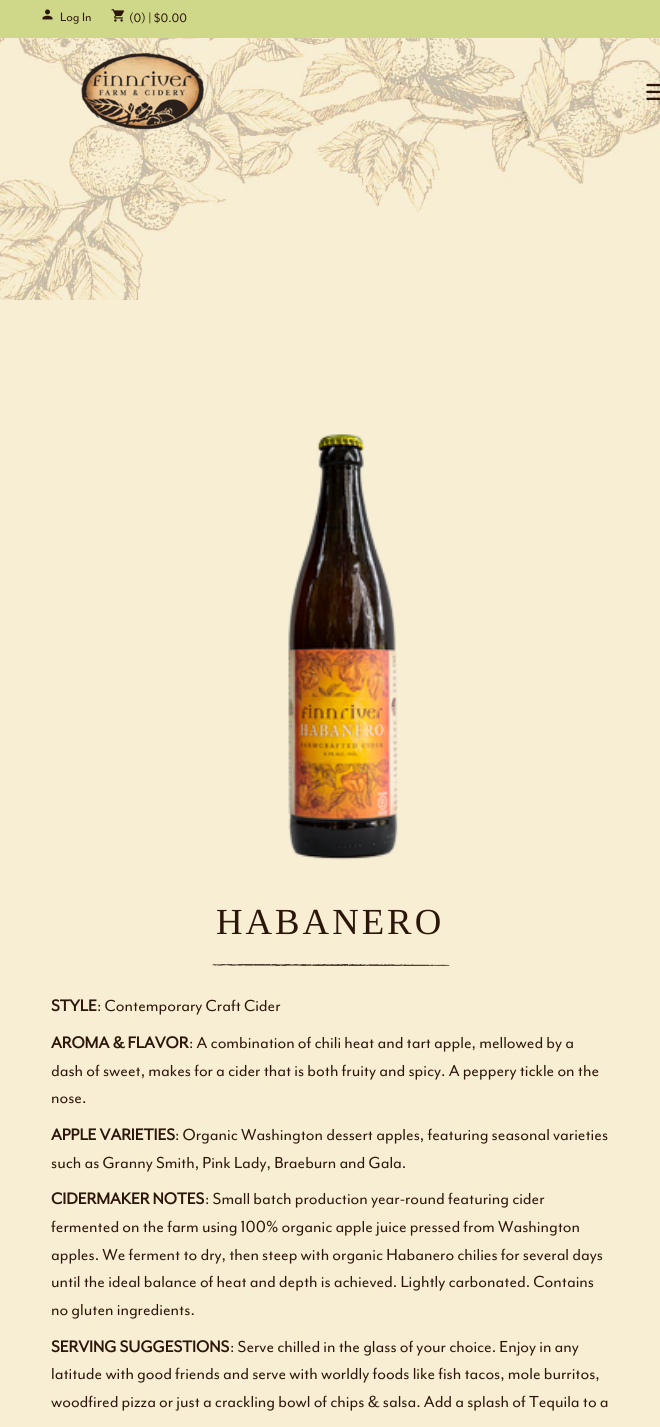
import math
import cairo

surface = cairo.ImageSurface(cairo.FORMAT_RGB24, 660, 1427)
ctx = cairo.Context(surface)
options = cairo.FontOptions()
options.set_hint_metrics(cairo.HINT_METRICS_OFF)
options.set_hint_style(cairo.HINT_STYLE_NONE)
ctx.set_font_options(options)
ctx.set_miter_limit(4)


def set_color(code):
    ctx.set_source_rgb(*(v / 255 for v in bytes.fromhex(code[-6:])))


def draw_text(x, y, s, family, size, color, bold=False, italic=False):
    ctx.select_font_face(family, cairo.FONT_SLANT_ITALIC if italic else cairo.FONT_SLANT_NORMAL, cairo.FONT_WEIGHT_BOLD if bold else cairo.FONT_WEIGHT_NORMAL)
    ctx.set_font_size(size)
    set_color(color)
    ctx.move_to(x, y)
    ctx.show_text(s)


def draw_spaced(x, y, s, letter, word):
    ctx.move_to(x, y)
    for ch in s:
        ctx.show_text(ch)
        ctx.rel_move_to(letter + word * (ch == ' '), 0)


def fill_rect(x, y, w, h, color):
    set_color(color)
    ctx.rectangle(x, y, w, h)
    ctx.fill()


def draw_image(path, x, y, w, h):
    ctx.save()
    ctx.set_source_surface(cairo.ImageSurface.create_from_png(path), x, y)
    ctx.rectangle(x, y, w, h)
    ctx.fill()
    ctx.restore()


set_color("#f7eed4")
ctx.paint()
draw_image("assets/img1.png", 0, 38, 660, 262)
fill_rect(0, 0, 660, 38, "#cfd789")
draw_image("assets/img2.png", 42, 9, 11, 11)
draw_text(60, 21, "Log In", "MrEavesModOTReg", 14, "#2c1609")
draw_image("assets/img3.png", 111, 9, 14, 13)
draw_text(129, 22, "(0) | $0.00", "MrEavesModOTReg", 14, "#2c1609")
draw_image("assets/img4.png", 81, 52, 124, 78)
draw_image("assets/img5.png", 646, 83, 14, 17)
draw_image("assets/img6.png", 288, 434, 110, 426)
draw_image("assets/img7.png", 211, 964, 239, 2)
ctx.select_font_face("Liberation Serif")
ctx.set_font_size(36.75)
draw_spaced(216, 934, "HABANERO", 3, 0)
draw_text(51, 1011, "STYLE", "MrEavesModOTReg", 18.4, "#2c1609", bold=True)
draw_text(97, 1011, ": Contemporary Craft Cider", "MrEavesModOTReg", 18.4, "#2c1609")
draw_text(51, 1048, "AROMA & FLAVOR", "MrEavesModOTReg", 18.4, "#2c1609", bold=True)
draw_text(189, 1048, ": A combination of chili heat and tart apple, mellowed by a", "MrEavesModOTReg", 18.4, "#2c1609")
draw_text(51, 1076, "dash of sweet, makes for a cider that is both fruity and spicy. A peppery tickle on the", "MrEavesModOTReg", 18.4, "#2c1609")
draw_text(51, 1103, "nose.", "MrEavesModOTReg", 18.4, "#2c1609")
draw_text(51, 1140, "APPLE VARIETIES", "MrEavesModOTReg", 18.4, "#2c1609", bold=True)
draw_text(175, 1140, ": Organic Washington dessert apples, featuring seasonal varieties", "MrEavesModOTReg", 18.4, "#2c1609")
draw_text(51, 1168, "such as Granny Smith, Pink Lady, Braeburn and Gala.", "MrEavesModOTReg", 18.4, "#2c1609")
draw_text(51, 1204, "CIDERMAKER NOTES", "MrEavesModOTReg", 18.4, "#2c1609", bold=True)
draw_text(205, 1204, ": Small batch production year-round featuring cider", "MrEavesModOTReg", 18.4, "#2c1609")
draw_text(51, 1232, "fermented on the farm using 100% organic apple juice pressed from Washington", "MrEavesModOTReg", 18.4, "#2c1609")
draw_text(51, 1260, "apples. We ferment to dry, then steep with organic Habanero chilies for several days", "MrEavesModOTReg", 18.4, "#2c1609")
draw_text(51, 1287, "until the ideal balance of heat and depth is achieved. Lightly carbonated. Contains", "MrEavesModOTReg", 18.4, "#2c1609")
draw_text(51, 1315, "no gluten ingredients.", "MrEavesModOTReg", 18.4, "#2c1609")
draw_text(51, 1352, "SERVING SUGGESTIONS", "MrEavesModOTReg", 18.4, "#2c1609", bold=True)
draw_text(230, 1352, ": Serve chilled in the glass of your choice. Enjoy in any", "MrEavesModOTReg", 18.4, "#2c1609")
draw_text(51, 1379, "latitude with good friends and serve with worldly foods like fish tacos, mole burritos,", "MrEavesModOTReg", 18.4, "#2c1609")
draw_text(51, 1407, "woodfired pizza or just a crackling bowl of chips & salsa. Add a splash of Tequila to a", "MrEavesModOTReg", 18.4, "#2c1609")
surface.write_to_png("output.png")
